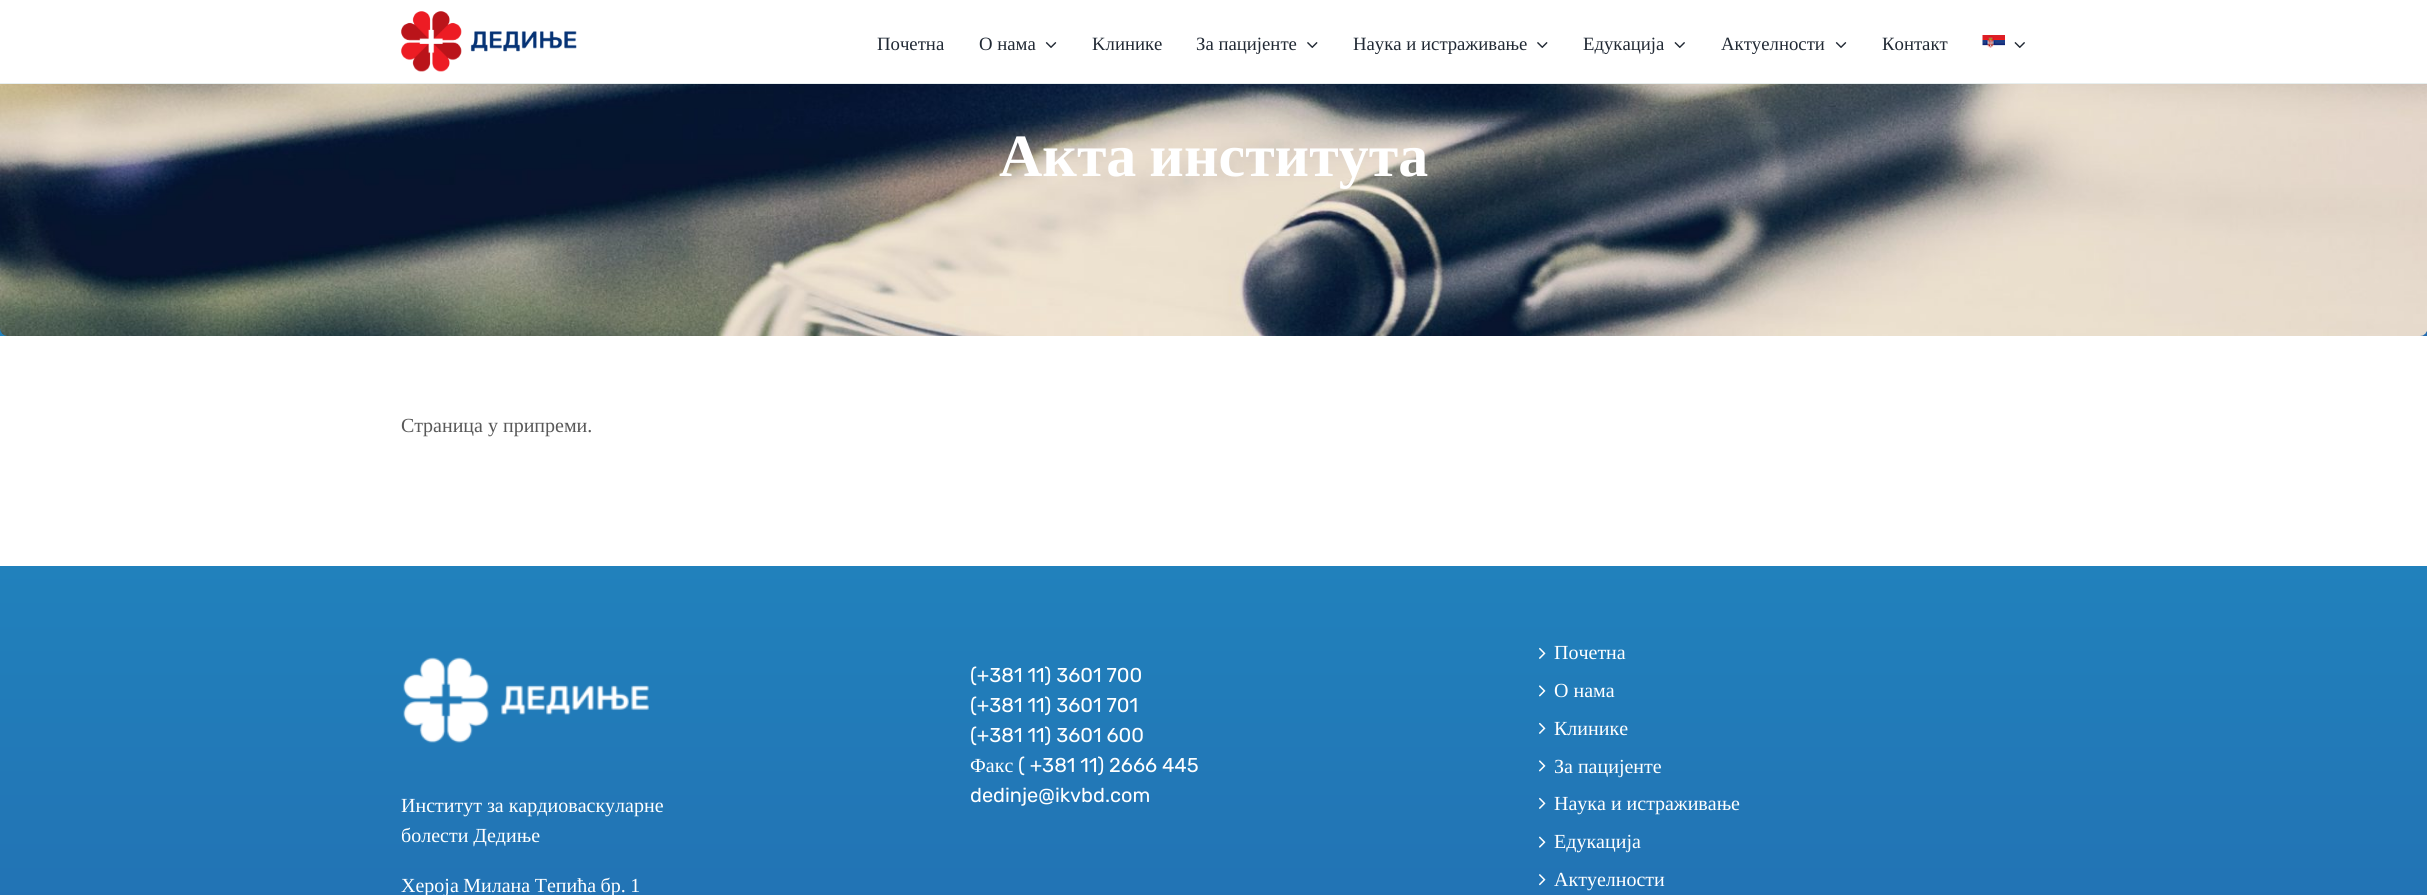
import math
import cairo

surface = cairo.ImageSurface(cairo.FORMAT_RGB24, 2427, 895)
ctx = cairo.Context(surface)
options = cairo.FontOptions()
options.set_hint_metrics(cairo.HINT_METRICS_OFF)
options.set_hint_style(cairo.HINT_STYLE_NONE)
ctx.set_font_options(options)
ctx.set_miter_limit(4)


def set_color(code):
    ctx.set_source_rgb(*(v / 255 for v in bytes.fromhex(code[-6:])))


def draw_text(x, y, s, family, size, color, bold=False, italic=False):
    ctx.select_font_face(family, cairo.FONT_SLANT_ITALIC if italic else cairo.FONT_SLANT_NORMAL, cairo.FONT_WEIGHT_BOLD if bold else cairo.FONT_WEIGHT_NORMAL)
    ctx.set_font_size(size)
    set_color(color)
    ctx.move_to(x, y)
    ctx.show_text(s)


def draw_spaced(x, y, s, letter, word):
    ctx.move_to(x, y)
    for ch in s:
        ctx.show_text(ch)
        ctx.rel_move_to(letter + word * (ch == ' '), 0)


def fill_rect(x, y, w, h, color):
    set_color(color)
    ctx.rectangle(x, y, w, h)
    ctx.fill()


def draw_image(path, x, y, w, h):
    ctx.save()
    ctx.set_source_surface(cairo.ImageSurface.create_from_png(path), x, y)
    ctx.rectangle(x, y, w, h)
    ctx.fill()
    ctx.restore()


set_color("#ffffff")
ctx.paint()
fill_rect(0, 83, 2427, 1, "#e8efef")
draw_image("assets/img1.png", 401, 11, 176, 61)
draw_text(877, 50, "Почетна", "Liberation Serif", 18.75, "#212934")
draw_text(979, 50, "О нама", "Liberation Serif", 18.75, "#212934")
draw_image("assets/img2.png", 1045, 42, 12, 6)
draw_text(1092, 50, "Kлинике", "Liberation Serif", 18.75, "#212934")
draw_text(1196, 50, "За пацијенте", "Liberation Serif", 18.75, "#212934")
draw_image("assets/img3.png", 1307, 42, 11, 6)
draw_text(1353, 50, "Наука и истраживање", "Liberation Serif", 18.75, "#212934")
draw_image("assets/img3.png", 1537, 42, 11, 6)
draw_text(1583, 50, "Едукација", "Liberation Serif", 18.75, "#212934")
draw_image("assets/img4.png", 1674, 42, 11, 6)
draw_text(1721, 50, "Актуелности", "Liberation Serif", 18.75, "#212934")
draw_image("assets/img2.png", 1835, 42, 12, 6)
draw_text(1882, 50, "Контакт", "Liberation Serif", 18.75, "#212934")
draw_image("assets/img5.png", 1982, 35, 23, 13)
draw_image("assets/img4.png", 2014, 42, 11, 6)
gradient = cairo.LinearGradient(0, 160, 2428, 160)
gradient.add_color_stop_rgba(0, 0.129, 0.506, 0.737, 1)
gradient.add_color_stop_rgba(0.78, 0.137, 0.42, 0.69, 1)
ctx.set_source(gradient)
ctx.rectangle(0, 329, 2427, 7)
ctx.fill()
draw_image("assets/img6.png", 0, 84, 2427, 252)
ctx.select_font_face("Liberation Serif", cairo.FONT_SLANT_NORMAL, cairo.FONT_WEIGHT_BOLD)
ctx.set_font_size(60)
set_color("#ffffff")
draw_spaced(999, 176, "Акта института", 0, -2)
draw_text(401, 432, "Страница у припреми.", "Liberation Serif", 20, "#585858")
gradient = cairo.LinearGradient(1214, 566, 1214, 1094)
gradient.add_color_stop_rgba(0, 0.129, 0.506, 0.737, 1)
gradient.add_color_stop_rgba(1, 0.137, 0.42, 0.69, 1)
ctx.set_source(gradient)
ctx.rectangle(0, 566, 2427, 329)
ctx.fill()
draw_text(970, 682, "(+381 11) 3601 700", "Rubik", 20, "#ffffff")
draw_text(970, 712, "(+381 11) 3601 701", "Rubik", 20, "#ffffff")
draw_text(970, 742, "(+381 11) 3601 600", "Rubik", 20, "#ffffff")
draw_text(970, 772, "Факс", "Liberation Serif", 20, "#ffffff")
draw_text(1018, 772, "( +381 11) 2666 445", "Rubik", 20, "#ffffff")
draw_text(970, 802, "dedinje@ikvbd.com", "Rubik", 20, "#ffffff")
draw_image("assets/img7.png", 1539, 647, 7, 12)
draw_text(1554, 659, "Почетна", "Liberation Serif", 20, "#ffffff")
draw_image("assets/img8.png", 1539, 685, 7, 12)
draw_text(1554, 697, "О нама", "Liberation Serif", 20, "#ffffff")
draw_image("assets/img9.png", 1539, 722, 7, 12)
draw_text(1554, 735, "Клинике", "Liberation Serif", 20, "#ffffff")
draw_image("assets/img10.png", 1539, 760, 7, 12)
draw_text(1554, 773, "За пацијенте", "Liberation Serif", 20, "#ffffff")
draw_image("assets/img11.png", 1539, 797, 7, 12)
draw_text(1554, 810, "Наука и истраживање", "Liberation Serif", 20, "#ffffff")
draw_image("assets/img12.png", 1539, 836, 7, 12)
draw_text(1554, 848, "Едукација", "Liberation Serif", 20, "#ffffff")
draw_image("assets/img13.png", 1539, 874, 7, 12)
draw_text(1554, 886, "Актуелности", "Liberation Serif", 20, "#ffffff")
draw_image("assets/img14.png", 403, 657, 246, 86)
draw_text(401, 812, "Институт за кардиоваскуларне", "Liberation Serif", 20, "#ffffff")
draw_text(401, 842, "болести Дедиње", "Liberation Serif", 20, "#ffffff")
draw_spaced(401, 892, "Хероја Милана Тепића бр. 1", 0, -0.5)
surface.write_to_png("output.png")
